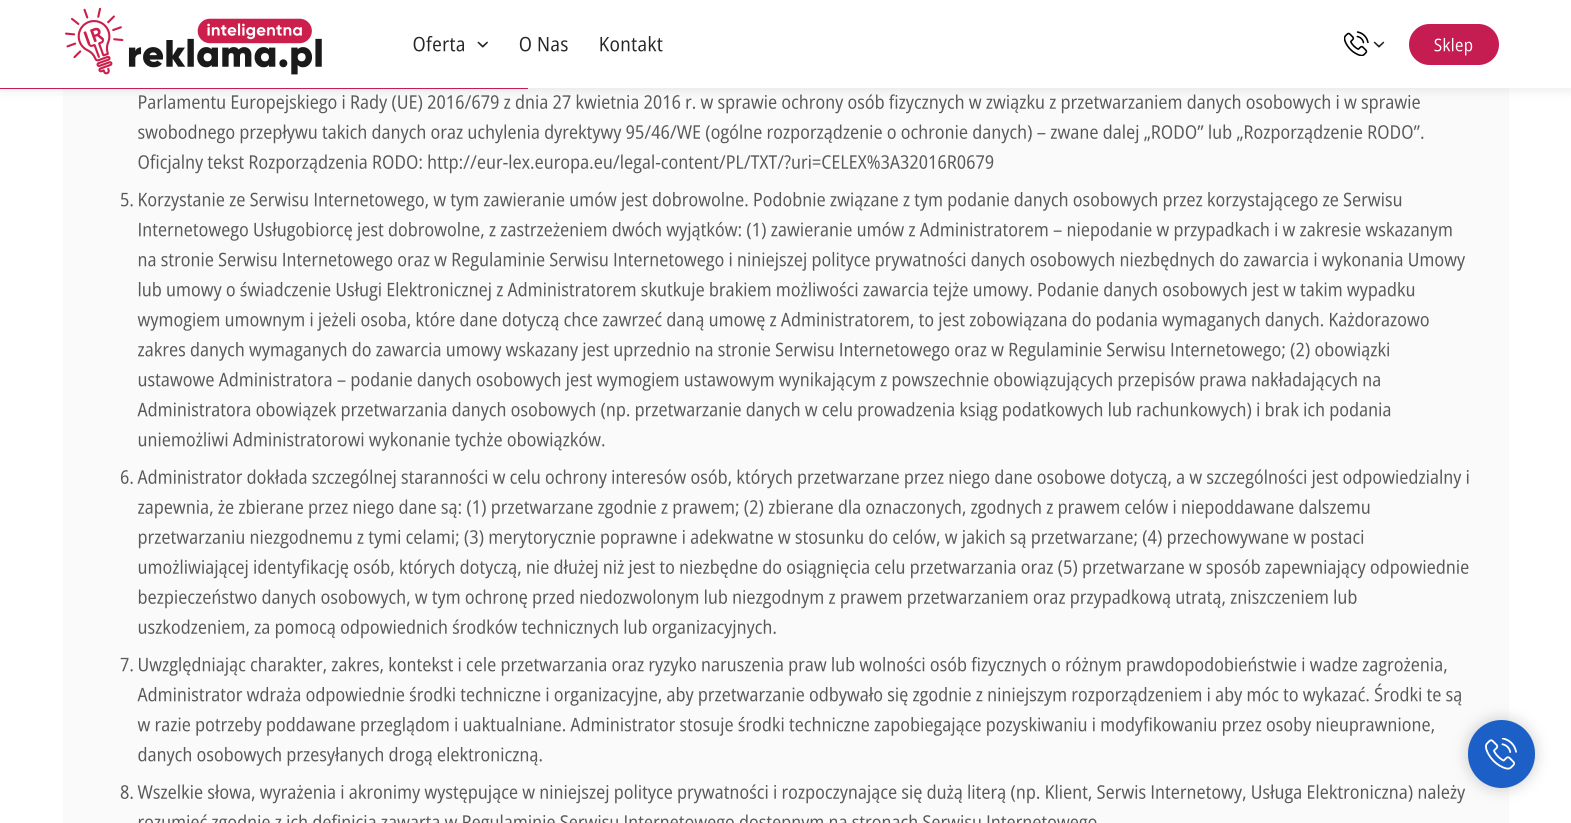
import math
import cairo

surface = cairo.ImageSurface(cairo.FORMAT_RGB24, 1571, 823)
ctx = cairo.Context(surface)
options = cairo.FontOptions()
options.set_hint_metrics(cairo.HINT_METRICS_OFF)
options.set_hint_style(cairo.HINT_STYLE_NONE)
ctx.set_font_options(options)
ctx.set_miter_limit(4)


def set_color(code):
    ctx.set_source_rgb(*(v / 255 for v in bytes.fromhex(code[-6:])))


def fill_rect(x, y, w, h, color):
    set_color(color)
    ctx.rectangle(x, y, w, h)
    ctx.fill()


def rounded_rect(x, y, w, h, r):
    ctx.new_sub_path()
    for i, (u, v) in enumerate([(x + w - r, y + h - r), (x + r, y + h - r), (x + r, y + r), (x + w - r, y + r)]):
        ctx.arc(u, v, r, i * math.pi / 2, (i + 1) * math.pi / 2)
    ctx.close_path()


def draw_shadow(x, y, w, h, r, blur, alpha):
    ctx.push_group_with_content(cairo.CONTENT_ALPHA)
    ctx.set_operator(cairo.OPERATOR_SOURCE)
    for i in range(15, -16, -2):
        e = blur * i / 6
        if min(w, h) + 2 * e > 0:
            ctx.set_source_rgba(0, 0, 0, alpha * math.erfc((i - 1) / 8.5) / 2)
            rounded_rect(x - e, y - e, w + 2 * e, h + 2 * e, max(0, min(r + e + blur * .6, min(w, h) / 2 + e)))
            ctx.fill()
    ctx.mask(ctx.pop_group())


def draw_image(path, x, y, w, h):
    ctx.save()
    ctx.set_source_surface(cairo.ImageSurface.create_from_png(path), x, y)
    ctx.rectangle(x, y, w, h)
    ctx.fill()
    ctx.restore()


set_color("#ffffff")
ctx.paint()
fill_rect(63, 88, 1446, 735, "#fafafa")
draw_image("assets/img9.png", 139, 94, 1281, 20)
set_color("#000000")
draw_shadow(0, 1, 1571, 88, 0, 6, 0.1)
fill_rect(0, 0, 1571, 88, "#ffffff")
draw_image("assets/img1.png", 65, 7, 257, 68)
draw_image("assets/img2.png", 413, 35, 51, 17)
draw_image("assets/img3.png", 477, 41, 11, 7)
draw_image("assets/img4.png", 519, 36, 49, 16)
draw_image("assets/img5.png", 600, 36, 63, 16)
draw_image("assets/img6.png", 1344, 31, 25, 25)
draw_image("assets/img7.png", 1373, 41, 12, 7)
set_color("#c51d52")
rounded_rect(1409, 24, 90, 41, 20.5)
ctx.fill()
draw_image("assets/img8.png", 1434, 37, 39, 19)
ctx.new_path()
ctx.move_to(0, 88)
ctx.line_to(527.5, 88)
ctx.curve_to(528, 88, 528, 88, 528, 88.5)
ctx.curve_to(528, 89, 528, 89, 527.5, 89)
ctx.line_to(0, 89)
ctx.close_path()
ctx.fill()
draw_image("assets/img10.png", 138, 124, 1286, 20)
draw_image("assets/img11.png", 138, 154, 856, 20)
draw_image("assets/img12.png", 121, 192, 12, 15)
draw_image("assets/img13.png", 139, 191, 1263, 20)
draw_image("assets/img14.png", 139, 221, 1313, 20)
draw_image("assets/img15.png", 138, 251, 1327, 20)
draw_image("assets/img16.png", 138, 281, 1277, 20)
draw_image("assets/img17.png", 137, 311, 1292, 20)
draw_image("assets/img18.png", 138, 342, 1252, 19)
draw_image("assets/img19.png", 138, 371, 1242, 20)
draw_image("assets/img20.png", 137, 402, 1254, 19)
draw_image("assets/img21.png", 138, 431, 467, 20)
draw_image("assets/img22.png", 120, 470, 13, 14)
draw_image("assets/img23.png", 137, 469, 1332, 20)
draw_image("assets/img24.png", 138, 499, 1232, 20)
draw_image("assets/img25.png", 138, 529, 1226, 20)
draw_image("assets/img26.png", 138, 559, 1331, 20)
draw_image("assets/img27.png", 138, 589, 1219, 20)
draw_image("assets/img28.png", 138, 619, 638, 20)
draw_image("assets/img29.png", 120, 657, 13, 15)
draw_image("assets/img30.png", 139, 656, 1308, 20)
draw_image("assets/img31.png", 137, 683, 1325, 23)
draw_image("assets/img32.png", 137, 716, 1297, 20)
draw_image("assets/img33.png", 138, 747, 404, 19)
draw_image("assets/img34.png", 120, 785, 13, 14)
draw_image("assets/img35.png", 137, 784, 1329, 20)
draw_image("assets/img36.png", 138, 814, 959, 9)
set_color("#000000")
draw_shadow(1468, 720, 67, 68, 33.5, 7.5, 0.2)
set_color("#1c5fc6")
rounded_rect(1468, 720, 67, 68, 33.5)
ctx.fill()
draw_image("assets/img37.png", 1485, 738, 32, 32)
surface.write_to_png("output.png")
